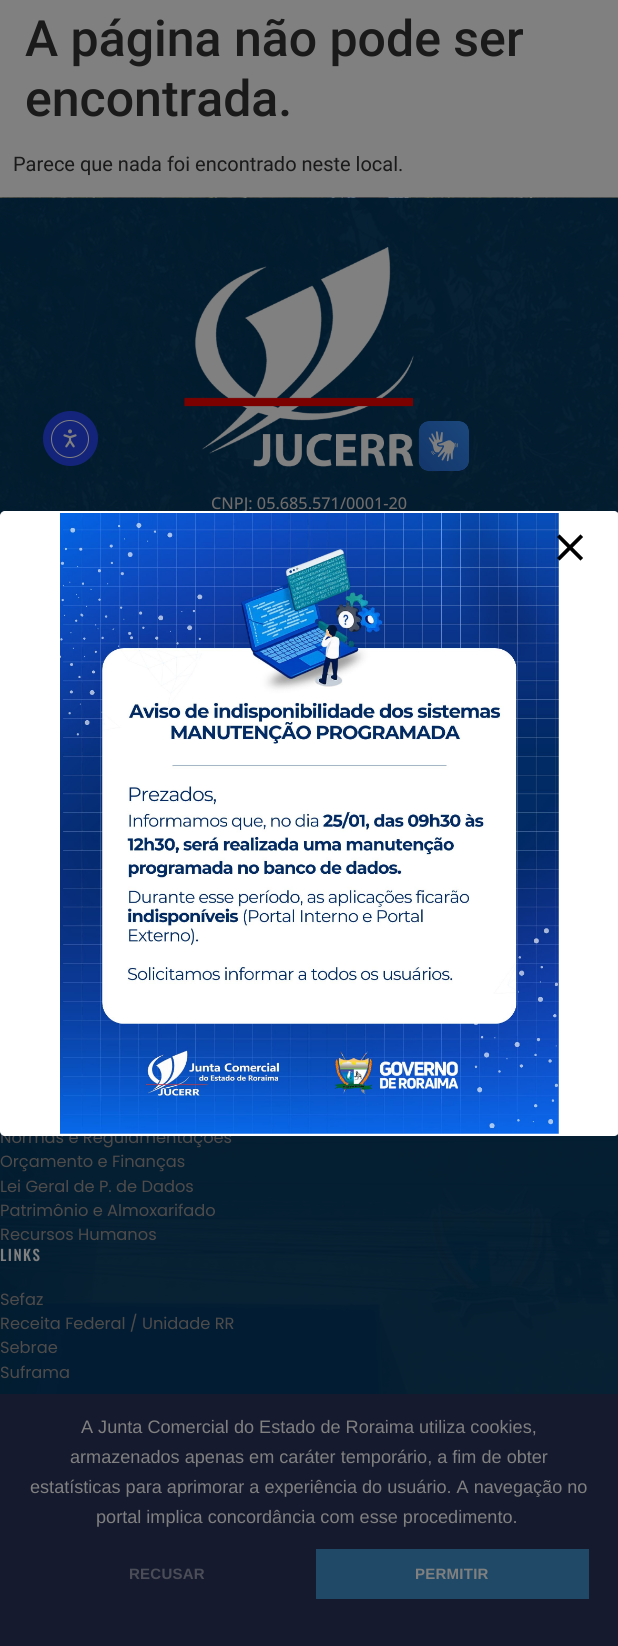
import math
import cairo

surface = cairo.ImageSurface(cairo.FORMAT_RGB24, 618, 1646)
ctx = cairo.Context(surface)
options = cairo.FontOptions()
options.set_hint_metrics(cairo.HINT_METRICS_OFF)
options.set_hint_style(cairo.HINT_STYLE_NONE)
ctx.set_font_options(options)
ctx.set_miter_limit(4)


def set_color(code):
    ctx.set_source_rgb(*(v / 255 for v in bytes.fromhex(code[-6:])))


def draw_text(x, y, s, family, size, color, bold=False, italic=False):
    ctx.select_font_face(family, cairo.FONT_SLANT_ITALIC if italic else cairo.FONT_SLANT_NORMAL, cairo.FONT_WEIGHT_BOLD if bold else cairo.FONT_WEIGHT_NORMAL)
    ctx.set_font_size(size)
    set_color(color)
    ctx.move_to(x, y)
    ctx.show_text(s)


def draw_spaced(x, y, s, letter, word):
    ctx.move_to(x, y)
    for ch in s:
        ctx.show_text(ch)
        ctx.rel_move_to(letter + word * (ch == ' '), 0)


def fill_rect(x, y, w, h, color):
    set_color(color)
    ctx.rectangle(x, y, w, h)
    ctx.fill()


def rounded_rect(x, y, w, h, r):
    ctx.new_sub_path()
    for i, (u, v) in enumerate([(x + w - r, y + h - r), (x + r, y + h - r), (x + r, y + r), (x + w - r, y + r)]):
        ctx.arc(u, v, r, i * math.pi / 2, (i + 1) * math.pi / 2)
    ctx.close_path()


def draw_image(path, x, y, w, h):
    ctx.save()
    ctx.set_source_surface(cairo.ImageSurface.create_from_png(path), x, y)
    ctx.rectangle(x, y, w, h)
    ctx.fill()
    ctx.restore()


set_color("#808080")
ctx.paint()
draw_text(25, 56, "A página não pode ser", "Roboto Medium", 50, "#1a1a1a")
draw_text(25, 116, "encontrada.", "Roboto Medium", 50, "#1a1a1a")
draw_text(13, 171, "Parece que nada foi encontrado neste local.", "Roboto", 20, "#1a1a1a")
draw_image("assets/img4.png", 0, 197, 618, 1197)
set_color("#14247a")
ctx.arc(70.5, 438.5, 27.5, 0, 2 * math.pi)
ctx.fill()
ctx.arc(70, 439, 18.5, 0, 2 * math.pi)
set_color("#808080")
ctx.set_line_width(1)
ctx.stroke()
draw_image("assets/img1.png", 63, 429, 14, 19)
draw_image("assets/img2.png", 418, 421, 51, 51)
draw_image("assets/img3.png", 419, 421, 50, 50)
draw_image("assets/img5.png", 184, 247, 230, 220)
draw_text(211, 509, "CNPJ: 05.685.571/0001-20", "Open Sans Medium", 16.25, "#6f6b6b")
draw_text(0, 1143, "Normas e Regulamentações", "Poppins", 16.25, "#4e4b4b")
draw_text(0, 1167, "Orçamento e Finanças", "Poppins", 16.25, "#4e4b4b")
draw_text(0, 1192, "Lei Geral de P. de Dados", "Poppins", 16.25, "#4e4b4b")
draw_text(0, 1216, "Patrimônio e Almoxarifado", "Poppins", 16.25, "#4e4b4b")
draw_text(0, 1240, "Recursos Humanos", "Poppins", 16.25, "#4e4b4b")
ctx.select_font_face("Oswald Medium")
ctx.set_font_size(15)
set_color("#808080")
draw_spaced(0, 1261, "LINKS", 1.5, 0)
draw_text(0, 1305, "Sefaz", "Poppins", 16.25, "#4e4b4b")
draw_text(0, 1329, "Receita Federal / Unidade RR", "Poppins", 16.25, "#4e4b4b")
draw_text(0, 1353, "Sebrae", "Poppins", 16.25, "#4e4b4b")
draw_text(0, 1378, "Suframa", "Poppins", 16.25, "#4e4b4b")
set_color("#ffffff")
rounded_rect(0.5, 511.5, 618, 624, 4.5)
ctx.fill_preserve()
ctx.stroke()
draw_image("assets/img6.png", 60, 513, 499, 621)
draw_image("assets/img7.png", 557, 534, 26, 27)
fill_rect(0, 1394, 618, 252, "#151a2e")
draw_text(81, 1433, "A Junta Comercial do Estado de Roraima utiliza cookies,", "Liberation Sans", 18.1, "#808080")
draw_text(70, 1463, "armazenados apenas em caráter temporário, a fim de obter", "Liberation Sans", 18.1, "#808080")
draw_text(30, 1493, "estatísticas para aprimorar a experiência do usuário. A navegação no", "Liberation Sans", 18.1, "#808080")
draw_text(96, 1523, "portal implica concordância com esse procedimento.", "Liberation Sans", 18.1, "#808080")
ctx.select_font_face("Liberation Sans", cairo.FONT_SLANT_NORMAL, cairo.FONT_WEIGHT_BOLD)
ctx.set_font_size(15)
set_color("#4a4d57")
draw_spaced(129, 1579, "RECUSAR", 0.25, 0)
fill_rect(316, 1549, 273, 50, "#1f4966")
set_color("#808080")
draw_spaced(415, 1579, "PERMITIR", 0.25, 0)
surface.write_to_png("output.png")
